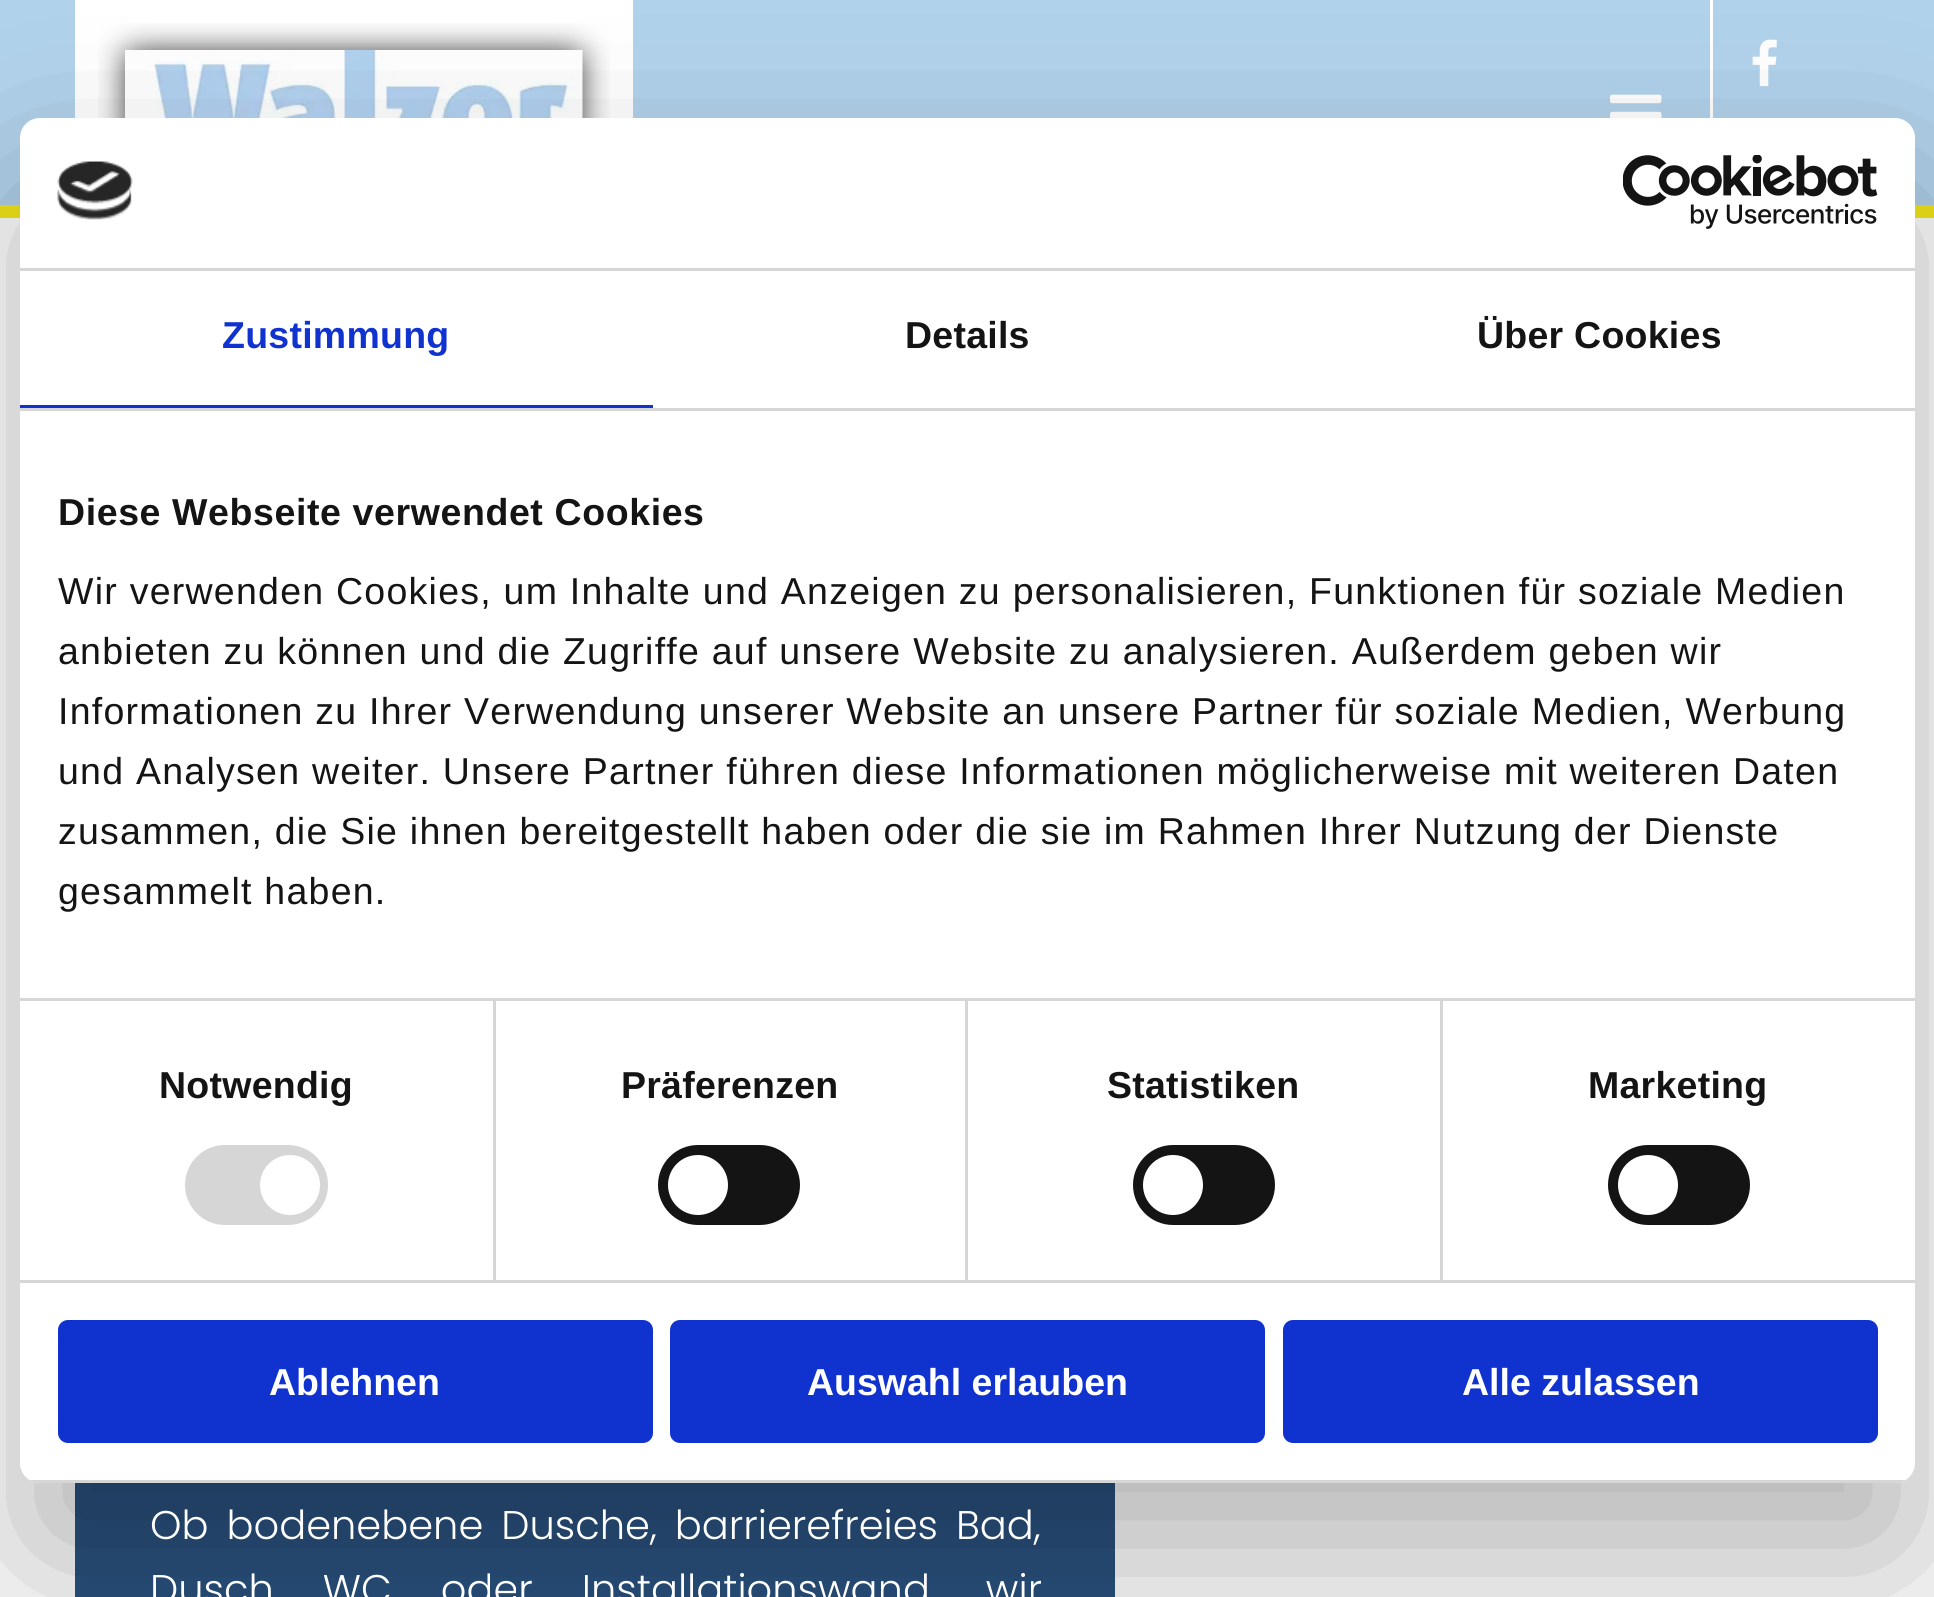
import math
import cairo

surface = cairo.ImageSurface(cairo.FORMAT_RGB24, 1934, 1597)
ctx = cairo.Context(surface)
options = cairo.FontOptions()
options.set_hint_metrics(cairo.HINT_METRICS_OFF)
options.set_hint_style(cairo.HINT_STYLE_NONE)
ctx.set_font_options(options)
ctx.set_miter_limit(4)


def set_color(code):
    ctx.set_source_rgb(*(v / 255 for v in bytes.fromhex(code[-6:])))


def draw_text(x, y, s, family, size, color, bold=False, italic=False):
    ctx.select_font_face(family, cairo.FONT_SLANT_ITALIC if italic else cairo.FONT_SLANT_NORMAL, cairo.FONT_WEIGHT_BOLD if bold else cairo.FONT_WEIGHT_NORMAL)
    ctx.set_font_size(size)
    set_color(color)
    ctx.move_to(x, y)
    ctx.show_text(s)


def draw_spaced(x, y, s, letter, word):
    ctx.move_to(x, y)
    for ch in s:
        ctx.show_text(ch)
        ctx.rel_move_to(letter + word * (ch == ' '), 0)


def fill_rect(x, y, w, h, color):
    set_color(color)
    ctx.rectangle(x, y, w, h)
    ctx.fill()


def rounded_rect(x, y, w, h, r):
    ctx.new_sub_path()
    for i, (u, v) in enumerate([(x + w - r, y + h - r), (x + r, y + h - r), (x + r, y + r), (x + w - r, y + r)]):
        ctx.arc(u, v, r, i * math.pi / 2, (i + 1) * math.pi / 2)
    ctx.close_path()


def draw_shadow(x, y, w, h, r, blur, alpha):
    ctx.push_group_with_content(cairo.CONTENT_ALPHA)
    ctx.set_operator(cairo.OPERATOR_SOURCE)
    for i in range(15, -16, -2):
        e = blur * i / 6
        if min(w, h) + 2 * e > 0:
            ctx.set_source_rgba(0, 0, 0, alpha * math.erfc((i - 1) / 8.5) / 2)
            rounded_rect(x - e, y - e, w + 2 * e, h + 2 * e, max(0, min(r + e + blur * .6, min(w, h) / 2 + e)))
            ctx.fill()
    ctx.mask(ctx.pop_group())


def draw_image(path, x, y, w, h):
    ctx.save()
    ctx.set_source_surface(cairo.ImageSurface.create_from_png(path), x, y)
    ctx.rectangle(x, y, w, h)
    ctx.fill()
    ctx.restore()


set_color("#ffffff")
ctx.paint()
fill_rect(0, 0, 1934, 205, "#b1d2eb")
fill_rect(0, 205, 1934, 13, "#f7e91b")
fill_rect(75, 0, 558, 118, "#ffffff")
draw_image("assets/img3.png", 98, 23, 512, 95)
draw_image("assets/img4.png", 1610, 94, 52, 24)
fill_rect(1710, 0, 3, 118, "#ffffff")
draw_image("assets/img5.png", 1752, 39, 25, 48)
fill_rect(75, 1483, 1040, 114, "#2a517f")
set_color("#000000")
draw_shadow(20, 198, 1895, 1365, 20, 85, 0.3)
set_color("#ffffff")
rounded_rect(20, 118, 1895, 1365, 20)
ctx.fill()
fill_rect(20, 268, 1895, 3, "#d6d6d6")
draw_image("assets/img1.png", 57, 161, 76, 59)
draw_image("assets/img2.png", 1623, 155, 255, 74)
fill_rect(20, 408, 1895, 3, "#d6d6d6")
fill_rect(20, 405, 633, 3, "#1032cf")
ctx.select_font_face("Liberation Sans", cairo.FONT_SLANT_NORMAL, cairo.FONT_WEIGHT_BOLD)
ctx.set_font_size(37.5)
draw_spaced(222, 348, "Zustimmung", 0.25, 0)
set_color("#141414")
draw_spaced(905, 348, "Details", 0.25, 0)
draw_spaced(1477, 348, "Über Cookies", 0.25, 0)
fill_rect(493, 1000, 3, 280, "#d6d6d6")
fill_rect(965, 1000, 3, 280, "#d6d6d6")
fill_rect(1440, 1000, 3, 280, "#d6d6d6")
fill_rect(20, 998, 1895, 3, "#d6d6d6")
set_color("#141414")
draw_spaced(58, 525, "Diese Webseite verwendet Cookies", 0.6, 0)
ctx.select_font_face("Liberation Sans")
draw_spaced(58, 604, "Wir verwenden Cookies, um Inhalte und Anzeigen zu personalisieren, Funktionen für soziale Medien", 1.25, 0)
draw_spaced(58, 664, "anbieten zu können und die Zugriffe auf unsere Website zu analysieren. Außerdem geben wir", 1.25, 0)
draw_spaced(58, 724, "Informationen zu Ihrer Verwendung unserer Website an unsere Partner für soziale Medien, Werbung", 1.25, 0)
draw_spaced(58, 784, "und Analysen weiter. Unsere Partner führen diese Informationen möglicherweise mit weiteren Daten", 1.25, 0)
draw_spaced(58, 844, "zusammen, die Sie ihnen bereitgestellt haben oder die sie im Rahmen Ihrer Nutzung der Dienste", 1.25, 0)
draw_spaced(58, 904, "gesammelt haben.", 1.25, 0)
fill_rect(20, 1280, 1895, 3, "#d6d6d6")
ctx.select_font_face("Liberation Sans", cairo.FONT_SLANT_NORMAL, cairo.FONT_WEIGHT_BOLD)
set_color("#141414")
draw_spaced(159, 1098, "Notwendig", 0.25, 0)
set_color("#d6d6d6")
rounded_rect(185, 1145, 143, 80, 40)
ctx.fill()
set_color("#ffffff")
ctx.arc(290, 1185, 30, 0, 2 * math.pi)
ctx.fill()
set_color("#141414")
draw_spaced(621, 1098, "Präferenzen", 0.25, 0)
rounded_rect(658, 1145, 142, 80, 40)
ctx.fill()
set_color("#ffffff")
ctx.arc(698, 1185, 30, 0, 2 * math.pi)
ctx.fill()
set_color("#141414")
draw_spaced(1107, 1098, "Statistiken", 0.25, 0)
rounded_rect(1133, 1145, 142, 80, 40)
ctx.fill()
set_color("#ffffff")
ctx.arc(1173, 1185, 30, 0, 2 * math.pi)
ctx.fill()
set_color("#141414")
draw_spaced(1588, 1098, "Marketing", 0.25, 0)
rounded_rect(1608, 1145, 142, 80, 40)
ctx.fill()
set_color("#ffffff")
ctx.arc(1648, 1185, 30, 0, 2 * math.pi)
ctx.fill()
ctx.save()
rounded_rect(20, 118, 1895, 1365, 20)
ctx.clip()
fill_rect(29, 1480, 1877, 3, "#d6d6d6")
ctx.restore()
set_color("#1032cf")
rounded_rect(60.5, 1322.5, 590, 118, 7.5)
ctx.fill_preserve()
ctx.set_line_width(5)
ctx.stroke()
draw_text(269, 1395, "Ablehnen", "Liberation Sans", 37.5, "#ffffff", bold=True)
set_color("#1032cf")
rounded_rect(672.5, 1322.5, 590, 118, 7.5)
ctx.fill_preserve()
ctx.stroke()
draw_text(807, 1395, "Auswahl erlauben", "Liberation Sans", 37.5, "#ffffff", bold=True)
set_color("#1032cf")
rounded_rect(1285.5, 1322.5, 590, 118, 7.5)
ctx.fill_preserve()
ctx.stroke()
draw_text(1462, 1395, "Alle zulassen", "Liberation Sans", 37.5, "#ffffff", bold=True)
ctx.select_font_face("Poppins Light")
ctx.set_font_size(40)
draw_spaced(150, 1539, "Ob bodenebene Dusche, barrierefreies Bad,", 0, 7)
draw_spaced(150, 1603, "Dusch WC oder Installationswand, wir", 0, 38)
surface.write_to_png("output.png")
